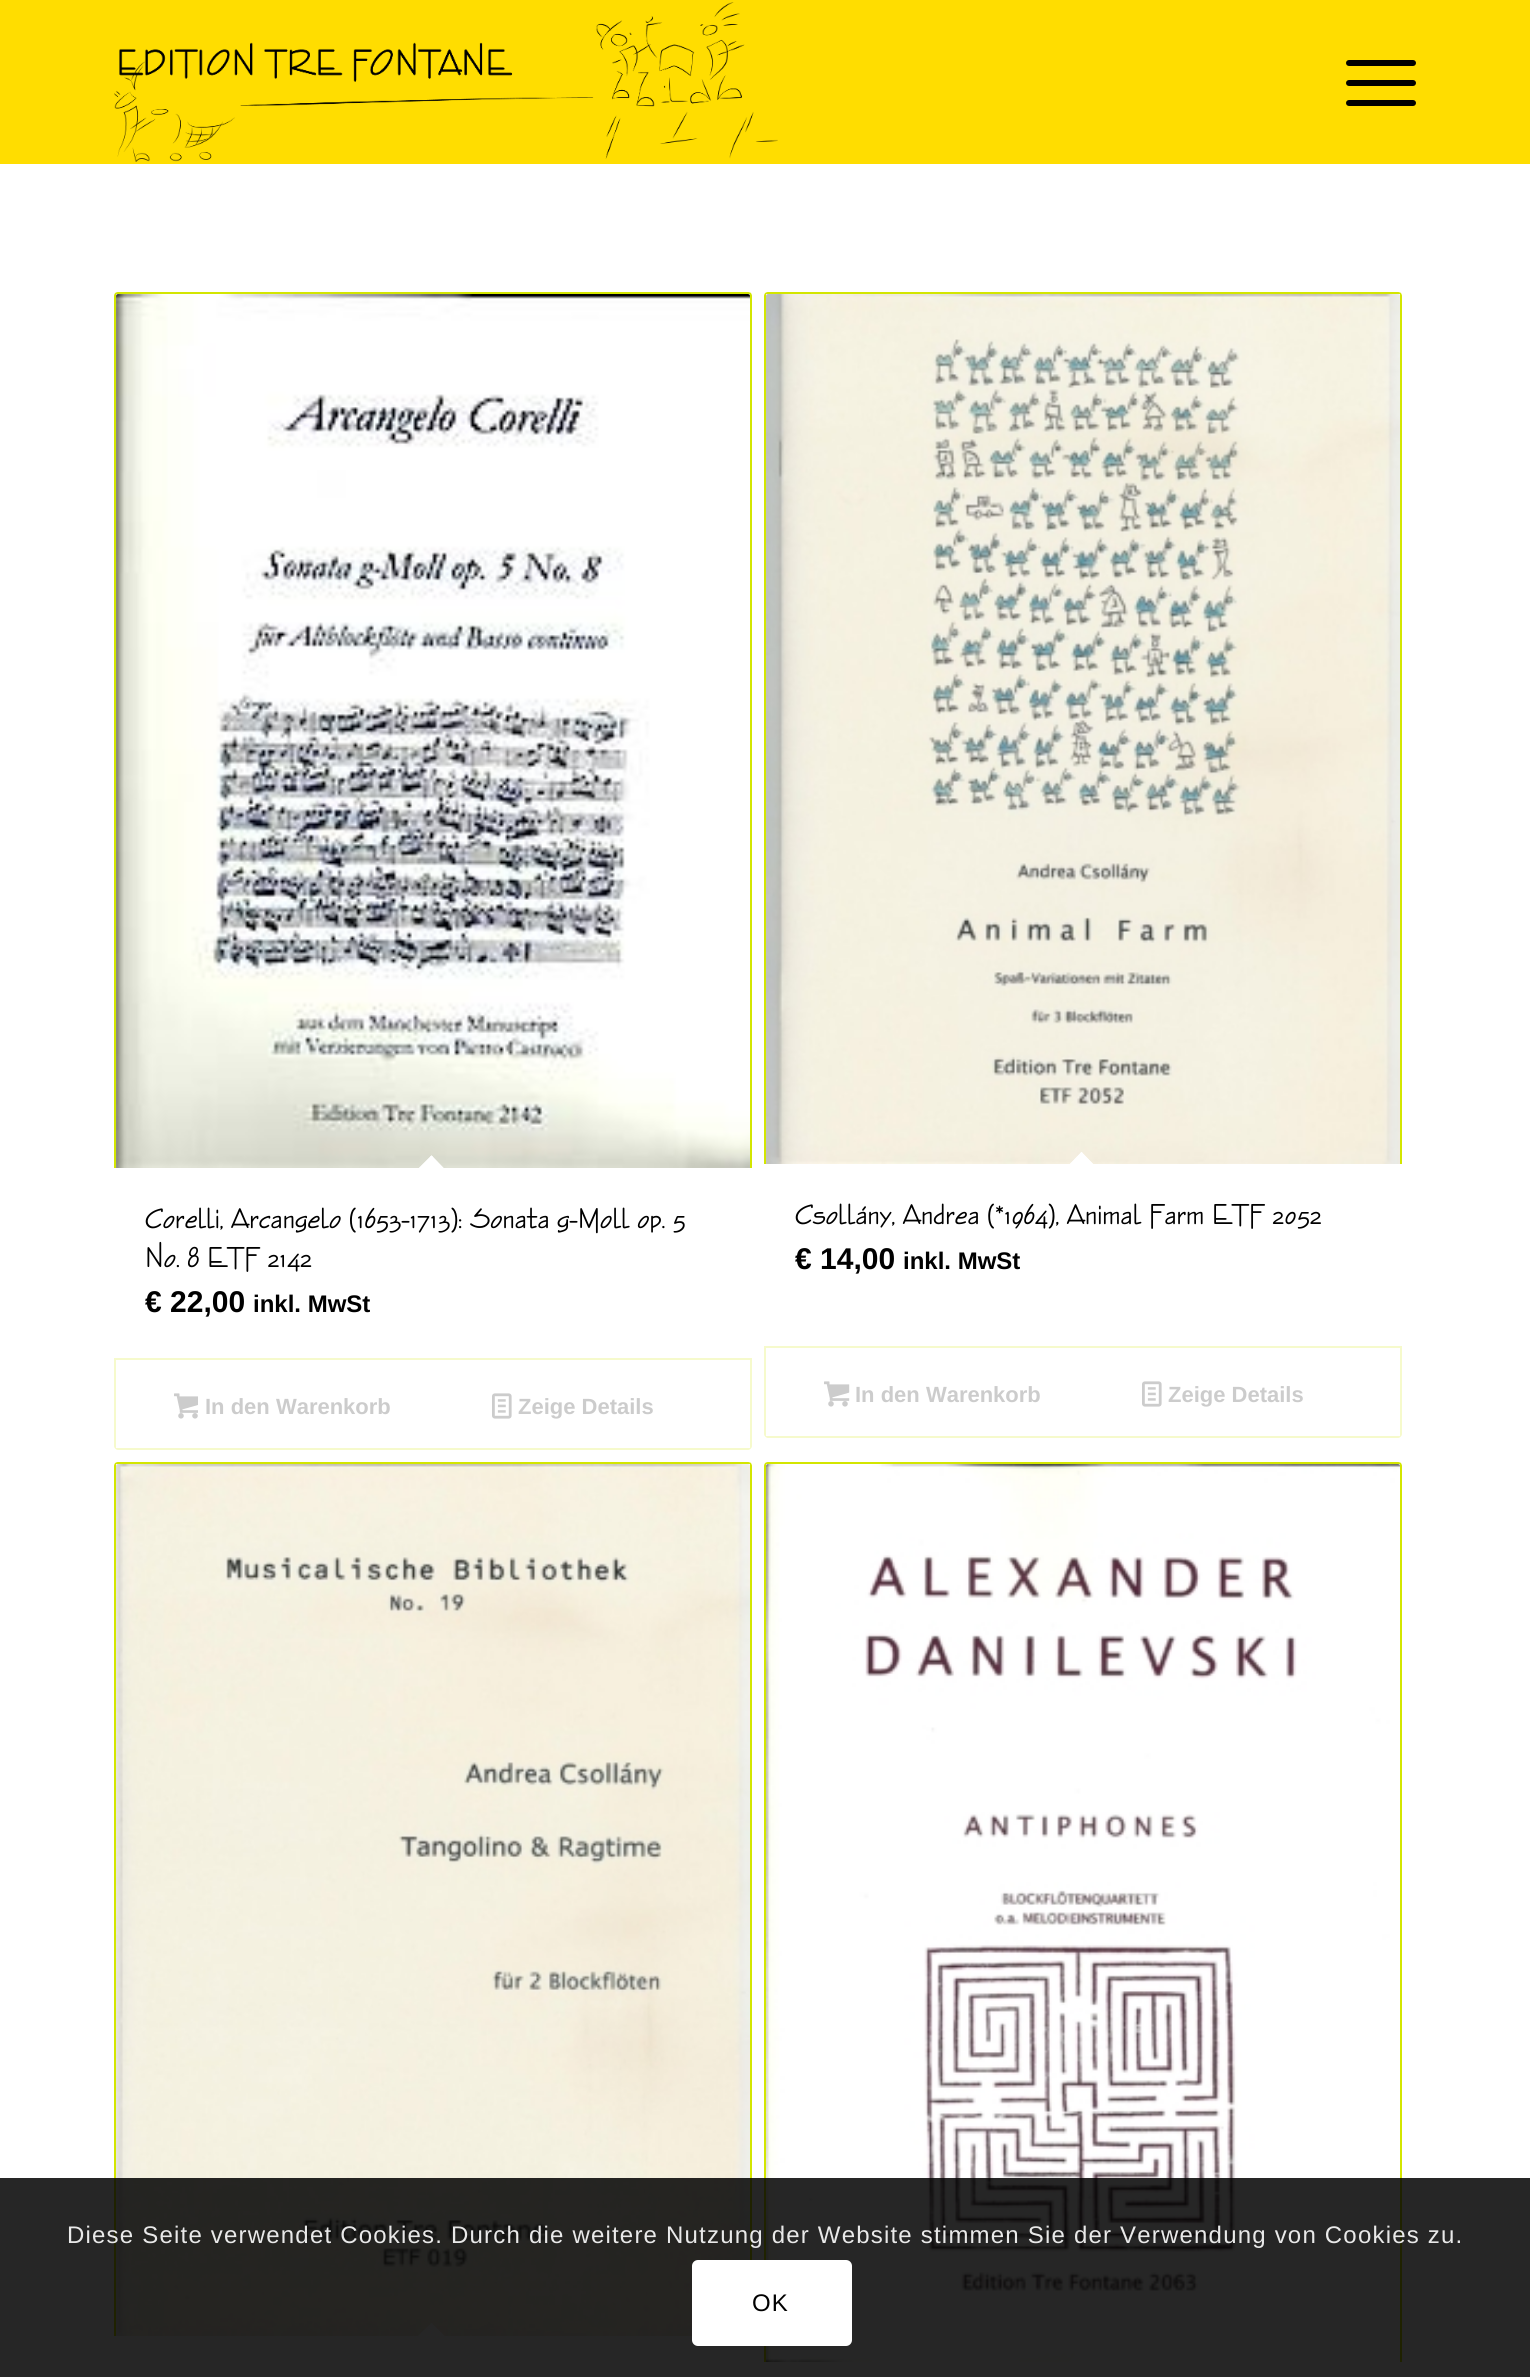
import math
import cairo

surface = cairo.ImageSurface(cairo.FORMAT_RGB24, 1530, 2377)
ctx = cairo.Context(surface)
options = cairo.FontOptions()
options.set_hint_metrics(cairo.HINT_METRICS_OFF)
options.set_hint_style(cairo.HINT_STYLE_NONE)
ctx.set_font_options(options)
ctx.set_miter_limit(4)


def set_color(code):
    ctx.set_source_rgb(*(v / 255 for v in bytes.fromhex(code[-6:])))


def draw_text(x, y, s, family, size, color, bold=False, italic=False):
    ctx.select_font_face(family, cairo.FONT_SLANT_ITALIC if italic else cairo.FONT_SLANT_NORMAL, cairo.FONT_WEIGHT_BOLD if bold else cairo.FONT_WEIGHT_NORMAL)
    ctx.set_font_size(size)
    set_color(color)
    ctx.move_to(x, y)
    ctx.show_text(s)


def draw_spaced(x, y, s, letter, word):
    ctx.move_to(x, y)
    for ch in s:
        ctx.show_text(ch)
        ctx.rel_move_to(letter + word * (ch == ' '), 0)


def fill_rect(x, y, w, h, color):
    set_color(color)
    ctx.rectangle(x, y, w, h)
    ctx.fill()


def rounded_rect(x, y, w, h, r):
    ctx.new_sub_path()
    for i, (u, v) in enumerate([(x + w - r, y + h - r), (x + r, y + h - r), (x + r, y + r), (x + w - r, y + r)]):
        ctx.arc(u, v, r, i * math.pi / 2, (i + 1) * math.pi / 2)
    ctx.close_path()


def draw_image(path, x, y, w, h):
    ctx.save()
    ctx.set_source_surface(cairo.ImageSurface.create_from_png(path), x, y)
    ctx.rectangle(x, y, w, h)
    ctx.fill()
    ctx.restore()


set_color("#ffffff")
ctx.paint()
fill_rect(0, 0, 1530, 164, "#ffdd00")
draw_image("assets/img1.png", 114, 2, 664, 160)
set_color("#000000")
rounded_rect(1346, 80, 70, 6, 3)
ctx.fill()
rounded_rect(1346, 60, 70, 6, 3)
ctx.fill()
rounded_rect(1346, 100, 70, 6, 3)
ctx.fill()
ctx.save()
rounded_rect(114, 292, 638, 1158, 4)
ctx.clip()
set_color("#d3e600")
ctx.new_path()
ctx.move_to(116, 292)
ctx.line_to(750, 292)
ctx.curve_to(751, 292, 752, 293, 752, 294)
ctx.line_to(114, 294)
ctx.curve_to(114, 293, 115, 292, 116, 292)
ctx.close_path()
ctx.fill()
ctx.new_path()
ctx.move_to(750, 292)
ctx.curve_to(751, 292, 752, 293, 752, 294)
ctx.line_to(752, 1168)
ctx.line_to(750, 1168)
ctx.close_path()
ctx.fill()
ctx.new_path()
ctx.move_to(116, 292)
ctx.line_to(116, 1168)
ctx.line_to(114, 1168)
ctx.line_to(114, 294)
ctx.curve_to(114, 293, 115, 292, 116, 292)
ctx.close_path()
ctx.fill()
ctx.restore()
draw_image("assets/img2.png", 116, 294, 634, 874)
set_color("#ffffff")
ctx.new_path()
ctx.move_to(431.5, 1155.5)
ctx.line_to(445.5, 1170)
ctx.line_to(431.5, 1184)
ctx.line_to(417, 1170)
ctx.close_path()
ctx.fill()
ctx.new_path()
ctx.move_to(431.5, 1155.5)
ctx.line_to(445.5, 1170)
ctx.line_to(444, 1171)
ctx.line_to(430, 1157)
ctx.close_path()
ctx.fill()
ctx.new_path()
ctx.move_to(431.5, 1155.5)
ctx.line_to(433, 1157)
ctx.line_to(418.5, 1171)
ctx.line_to(417, 1170)
ctx.close_path()
ctx.fill()
draw_text(145, 1228, "Corelli, Arcangelo (1653-1713): Sonata g-Moll op. 5", "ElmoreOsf", 30, "#000000")
draw_text(145, 1267, "No. 8 ETF 2142", "ElmoreOsf", 30, "#000000")
draw_text(145, 1312, "€ 22,00", "Liberation Sans", 30, "#000000", bold=True)
draw_text(253, 1312, "inkl. MwSt", "Liberation Sans", 24, "#000000", bold=True)
set_color("#f6facc")
ctx.set_fill_rule(cairo.FILL_RULE_EVEN_ODD)
ctx.new_path()
ctx.move_to(114, 1358)
ctx.line_to(114, 1446)
ctx.curve_to(114, 1448, 116, 1450, 118, 1450)
ctx.line_to(748, 1450)
ctx.curve_to(750, 1450, 752, 1448, 752, 1446)
ctx.line_to(752, 1358)
ctx.close_path()
ctx.move_to(116, 1360)
ctx.line_to(116, 1448)
ctx.line_to(750, 1448)
ctx.line_to(750, 1360)
ctx.close_path()
ctx.fill()
draw_image("assets/img3.png", 174, 1393, 24, 26)
draw_text(205, 1414, "In den Warenkorb", "Liberation Sans", 22, "#cccccc", bold=True)
draw_image("assets/img4.png", 492, 1393, 20, 26)
draw_text(518, 1414, "Zeige Details", "Liberation Sans", 22, "#cccccc", bold=True)
ctx.save()
ctx.set_fill_rule(cairo.FILL_RULE_WINDING)
rounded_rect(764, 292, 638, 1146, 4)
ctx.clip()
set_color("#d3e600")
ctx.new_path()
ctx.move_to(766, 292)
ctx.line_to(1400, 292)
ctx.curve_to(1401, 292, 1402, 293, 1402, 294)
ctx.line_to(764, 294)
ctx.curve_to(764, 293, 765, 292, 766, 292)
ctx.close_path()
ctx.fill()
ctx.new_path()
ctx.move_to(1400, 292)
ctx.curve_to(1401, 292, 1402, 293, 1402, 294)
ctx.line_to(1402, 1164)
ctx.line_to(1400, 1164)
ctx.close_path()
ctx.fill()
ctx.new_path()
ctx.move_to(766, 292)
ctx.line_to(766, 1164)
ctx.line_to(764, 1164)
ctx.line_to(764, 294)
ctx.curve_to(764, 293, 765, 292, 766, 292)
ctx.close_path()
ctx.fill()
ctx.restore()
draw_image("assets/img5.png", 766, 294, 634, 870)
set_color("#ffffff")
ctx.set_fill_rule(cairo.FILL_RULE_WINDING)
ctx.new_path()
ctx.move_to(1081.5, 1152)
ctx.line_to(1095.5, 1166.5)
ctx.line_to(1081.5, 1180.5)
ctx.line_to(1067.5, 1166.5)
ctx.close_path()
ctx.fill()
ctx.new_path()
ctx.move_to(1081.5, 1152)
ctx.line_to(1095.5, 1166.5)
ctx.line_to(1094.5, 1168)
ctx.line_to(1080, 1153.5)
ctx.close_path()
ctx.fill()
ctx.new_path()
ctx.move_to(1081.5, 1152)
ctx.line_to(1083, 1153.5)
ctx.line_to(1069, 1168)
ctx.line_to(1067.5, 1166.5)
ctx.close_path()
ctx.fill()
draw_text(795, 1224, "Csollány, Andrea (*1964), Animal Farm ETF 2052", "ElmoreOsf", 30, "#000000")
draw_text(795, 1269, "€ 14,00", "Liberation Sans", 30, "#000000", bold=True)
draw_text(903, 1269, "inkl. MwSt", "Liberation Sans", 24, "#000000", bold=True)
set_color("#f6facc")
ctx.set_fill_rule(cairo.FILL_RULE_EVEN_ODD)
ctx.new_path()
ctx.move_to(764, 1346)
ctx.line_to(764, 1434)
ctx.curve_to(764, 1436, 766, 1438, 768, 1438)
ctx.line_to(1398, 1438)
ctx.curve_to(1400, 1438, 1402, 1436, 1402, 1434)
ctx.line_to(1402, 1346)
ctx.close_path()
ctx.move_to(766, 1348)
ctx.line_to(766, 1436)
ctx.line_to(1400, 1436)
ctx.line_to(1400, 1348)
ctx.close_path()
ctx.fill()
draw_image("assets/img6.png", 824, 1381, 26, 26)
draw_text(855, 1402, "In den Warenkorb", "Liberation Sans", 22, "#cccccc", bold=True)
draw_image("assets/img4.png", 1142, 1381, 20, 26)
draw_text(1168, 1402, "Zeige Details", "Liberation Sans", 22, "#cccccc", bold=True)
ctx.save()
ctx.set_fill_rule(cairo.FILL_RULE_WINDING)
rounded_rect(114, 1462, 638, 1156, 4)
ctx.clip()
set_color("#d3e600")
ctx.new_path()
ctx.move_to(116, 1462)
ctx.line_to(750, 1462)
ctx.curve_to(751, 1462, 752, 1463, 752, 1464)
ctx.line_to(114, 1464)
ctx.curve_to(114, 1463, 115, 1462, 116, 1462)
ctx.close_path()
ctx.fill()
ctx.new_path()
ctx.move_to(750, 1462)
ctx.curve_to(751, 1462, 752, 1463, 752, 1464)
ctx.line_to(752, 2336)
ctx.line_to(750, 2336)
ctx.close_path()
ctx.fill()
ctx.new_path()
ctx.move_to(116, 1462)
ctx.line_to(116, 2336)
ctx.line_to(114, 2336)
ctx.line_to(114, 1464)
ctx.curve_to(114, 1463, 115, 1462, 116, 1462)
ctx.close_path()
ctx.fill()
ctx.restore()
draw_image("assets/img7.png", 116, 1464, 634, 872)
set_color("#ffffff")
ctx.set_fill_rule(cairo.FILL_RULE_WINDING)
ctx.new_path()
ctx.move_to(431.5, 2323)
ctx.line_to(445.5, 2337)
ctx.line_to(431.5, 2351.5)
ctx.line_to(417, 2337)
ctx.close_path()
ctx.fill()
ctx.new_path()
ctx.move_to(431.5, 2323)
ctx.line_to(445.5, 2337)
ctx.line_to(444, 2338.5)
ctx.line_to(430, 2324.5)
ctx.close_path()
ctx.fill()
ctx.new_path()
ctx.move_to(431.5, 2323)
ctx.line_to(433, 2324.5)
ctx.line_to(418.5, 2338.5)
ctx.line_to(417, 2337)
ctx.close_path()
ctx.fill()
ctx.save()
rounded_rect(764, 1462, 638, 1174, 4)
ctx.clip()
set_color("#d3e600")
ctx.new_path()
ctx.move_to(766, 1462)
ctx.line_to(1400, 1462)
ctx.curve_to(1401, 1462, 1402, 1463, 1402, 1464)
ctx.line_to(764, 1464)
ctx.curve_to(764, 1463, 765, 1462, 766, 1462)
ctx.close_path()
ctx.fill()
ctx.new_path()
ctx.move_to(1400, 1462)
ctx.curve_to(1401, 1462, 1402, 1463, 1402, 1464)
ctx.line_to(1402, 2362)
ctx.line_to(1400, 2362)
ctx.close_path()
ctx.fill()
ctx.new_path()
ctx.move_to(766, 1462)
ctx.line_to(766, 2362)
ctx.line_to(764, 2362)
ctx.line_to(764, 1464)
ctx.curve_to(764, 1463, 765, 1462, 766, 1462)
ctx.close_path()
ctx.fill()
ctx.restore()
draw_image("assets/img8.png", 766, 1464, 634, 898)
ctx.new_path()
ctx.move_to(1081.5, 2349)
ctx.line_to(1095.5, 2363.5)
ctx.line_to(1081.5, 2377.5)
ctx.line_to(1067.5, 2363.5)
ctx.close_path()
ctx.fill()
ctx.set_source_rgba(0, 0, 0, 0.85)
ctx.rectangle(0, 2178, 1530, 199)
ctx.fill()
ctx.select_font_face("Liberation Sans")
ctx.set_font_size(24)
set_color("#e9e9e9")
draw_spaced(67, 2243, "Diese Seite verwendet Cookies. Durch die weitere Nutzung der Website stimmen Sie der Verwendung von Cookies zu.", 1.2, 0)
set_color("#ffffff")
rounded_rect(692, 2260, 160, 86, 6)
ctx.fill()
set_color("#000000")
draw_spaced(752, 2311, "OK", 1.2, 0)
surface.write_to_png("output.png")
